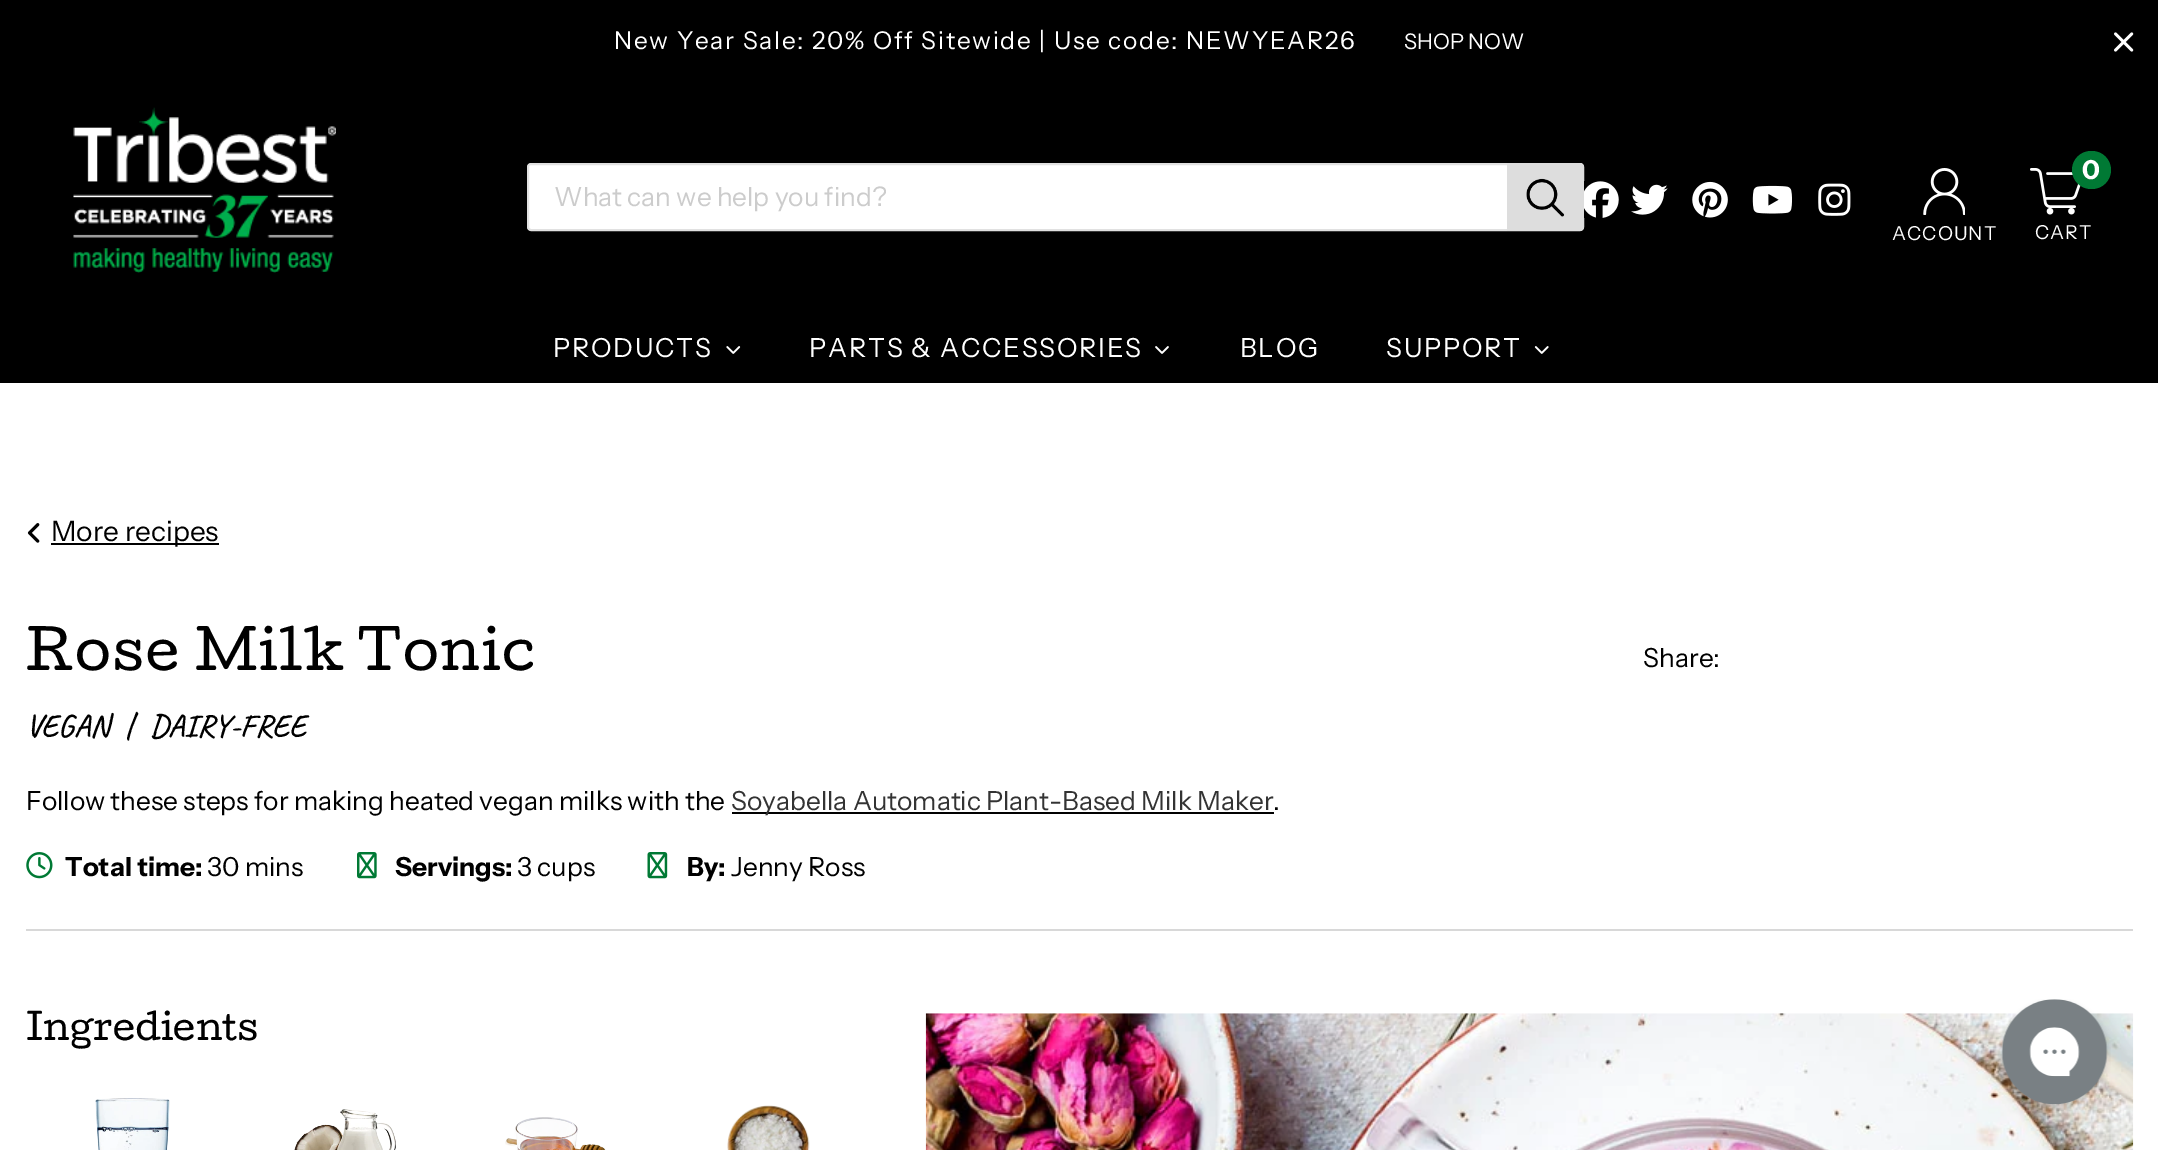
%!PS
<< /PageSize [2158 1150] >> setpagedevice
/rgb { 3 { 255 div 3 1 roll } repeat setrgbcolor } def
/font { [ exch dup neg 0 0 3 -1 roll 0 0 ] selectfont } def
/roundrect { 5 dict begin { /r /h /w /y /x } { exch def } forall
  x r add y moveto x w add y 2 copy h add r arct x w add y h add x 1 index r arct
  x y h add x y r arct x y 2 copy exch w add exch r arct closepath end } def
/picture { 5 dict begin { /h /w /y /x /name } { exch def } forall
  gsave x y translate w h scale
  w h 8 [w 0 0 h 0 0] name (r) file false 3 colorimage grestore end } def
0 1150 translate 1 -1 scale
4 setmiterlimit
255 255 255 rgb
0 0 2158 1150 rectfill
0 0 0 rgb
0 0 2158 383 rectfill
(img/1.rgb) 2114 32 20 20 picture
(img/2.rgb) 73 107 263 166 picture
255 255 255 rgb
528 164 1055 66 3 roundrect gsave fill grestore
225 225 225 rgb
2 setlinewidth
stroke
221 221 221 rgb
1507 163 moveto 1580 163 lineto 1582 163 1584 165 1584 167 curveto 1584 227 lineto 1584 229 1582 231 1580 231 curveto 1507 231 lineto closepath fill
(img/3.rgb) 1526 178 39 39 picture
(img/4.rgb) 1584 181 35 37 picture
(img/5.rgb) 1631 184 37 31 picture
(img/6.rgb) 1692 181 36 37 picture
(img/7.rgb) 1752 185 40 29 picture
(img/8.rgb) 1818 183 33 33 picture
(img/9.rgb) 2030 168 51 47 picture
0 121 52 rgb
2072 151 39 38 19 roundrect fill
(img/10.rgb) 1923 168 42 47 picture
(img/11.rgb) 726 346 15 8 picture
(img/12.rgb) 1155 346 14 8 picture
(img/13.rgb) 1534 346 15 8 picture
(img/14.rgb) 27 523 13 20 picture
0 0 0 rgb
51 543 168 2 rectfill
732 812 542 2 rectfill
(img/15.rgb) 26 852 27 27 picture
(img/16.rgb) 357 852 20 27 picture
(img/17.rgb) 647 852 21 27 picture
216 216 216 rgb
26 929 2107 2 rectfill
(img/18.rgb) 95 1098 75 52 picture
(img/19.rgb) 294 1109 102 41 picture
(img/20.rgb) 505 1117 101 33 picture
(img/21.rgb) 727 1105 83 45 picture
(img/22.rgb) 925 1013 1209 137 picture
(img/23.rgb) 1998 999 113 112 picture
/InstrumentSans-Regular 24.5 font
255 255 255 rgb
614 49 moveto 1.75 0 (New Year Sale: 20% Off Sitewide | Use code: NEWYEAR26) ashow
/InstrumentSans-Regular 21.5 font
1404 49 moveto (SHOP NOW) show
/InstrumentSans-Regular 26.25 font
204 204 204 rgb
554 206 moveto (What can we help you find?) show
/InstrumentSans-Bold 26.25 font
255 255 255 rgb
2082 179 moveto -3 0 (0) ashow
/InstrumentSans-Regular 19.25 font
2035 239 moveto 1 0 (CART) ashow
1892 240 moveto 1 0 (ACCOUNT) ashow
/InstrumentSans-Regular 26.25 font
553 357 moveto 1.75 0 (PRODUCTS) ashow
809 357 moveto 1.75 0 (PARTS & ACCESSORIES) ashow
1240 357 moveto 1.75 0 (BLOG) ashow
1386 357 moveto 1.75 0 (SUPPORT) ashow
/InstrumentSans-Regular 28 font
0 0 0 rgb
51 541 moveto (More recipes) show
/Cutive-Regular 52.5 font
26 670 moveto 1.75 0 (Rose Milk Tonic) ashow
/Caveat-SemiBold 31.5 font
26 736 moveto (VEGAN  |  DAIRY-FREE) show
/InstrumentSans-Regular 26.25 font
1643 667 moveto (Share:) show
26 810 moveto (Follow these steps for making heated vegan milks with the) show
51 51 51 rgb
731 810 moveto (Soyabella Automatic Plant-Based Milk Maker) show
0 0 0 rgb
1273 810 moveto (.) show
/InstrumentSans-Bold 26.25 font
65 876 moveto (Total time:) show
/InstrumentSans-Regular 26.25 font
207 876 moveto (30 mins) show
/InstrumentSans-Bold 26.25 font
395 876 moveto (Servings:) show
/InstrumentSans-Regular 26.25 font
517 876 moveto (3 cups) show
/InstrumentSans-Bold 26.25 font
687 876 moveto (By:) show
/InstrumentSans-Regular 26.25 font
731 876 moveto (Jenny Ross) show
/Cutive-Regular 35 font
26 1040 moveto (Ingredients) show
showpage
